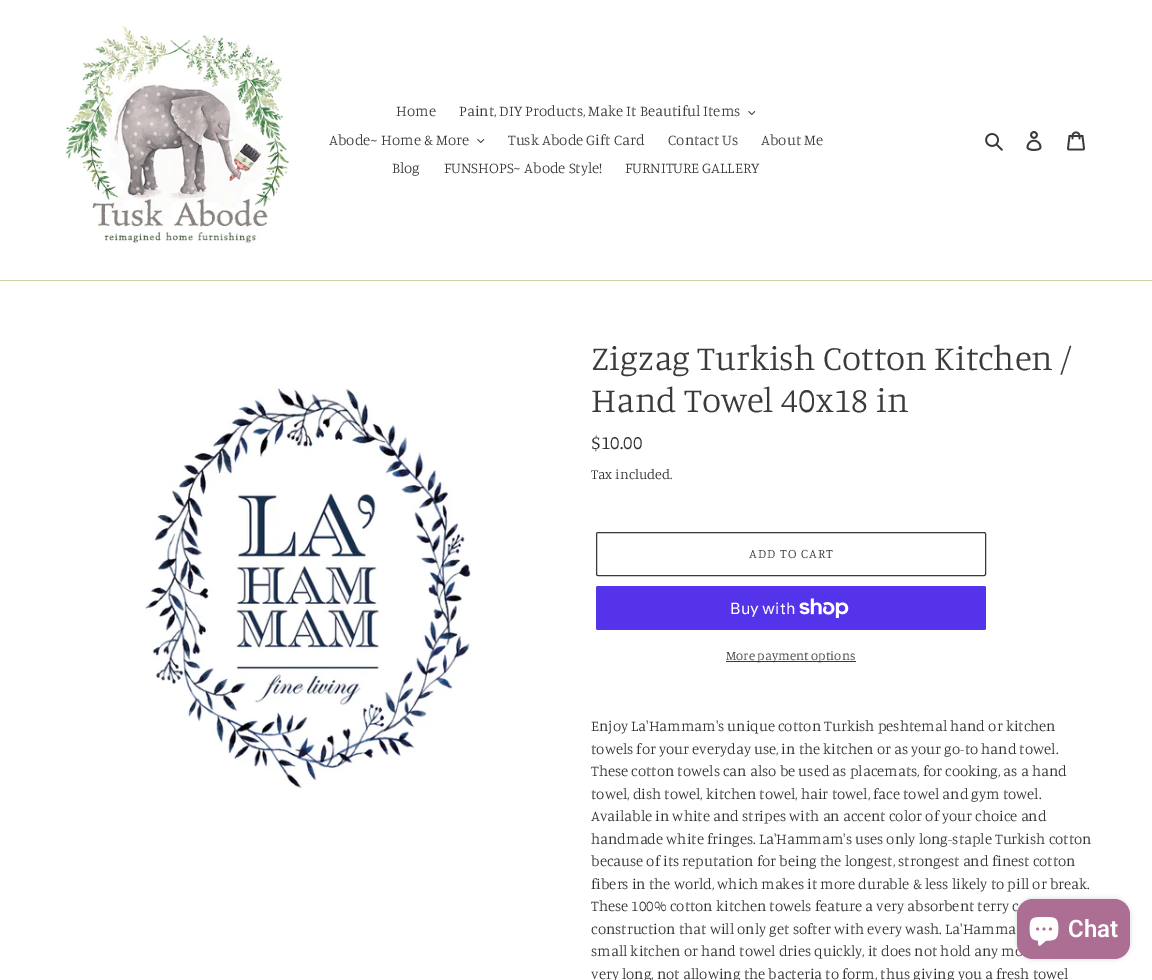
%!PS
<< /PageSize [1152 980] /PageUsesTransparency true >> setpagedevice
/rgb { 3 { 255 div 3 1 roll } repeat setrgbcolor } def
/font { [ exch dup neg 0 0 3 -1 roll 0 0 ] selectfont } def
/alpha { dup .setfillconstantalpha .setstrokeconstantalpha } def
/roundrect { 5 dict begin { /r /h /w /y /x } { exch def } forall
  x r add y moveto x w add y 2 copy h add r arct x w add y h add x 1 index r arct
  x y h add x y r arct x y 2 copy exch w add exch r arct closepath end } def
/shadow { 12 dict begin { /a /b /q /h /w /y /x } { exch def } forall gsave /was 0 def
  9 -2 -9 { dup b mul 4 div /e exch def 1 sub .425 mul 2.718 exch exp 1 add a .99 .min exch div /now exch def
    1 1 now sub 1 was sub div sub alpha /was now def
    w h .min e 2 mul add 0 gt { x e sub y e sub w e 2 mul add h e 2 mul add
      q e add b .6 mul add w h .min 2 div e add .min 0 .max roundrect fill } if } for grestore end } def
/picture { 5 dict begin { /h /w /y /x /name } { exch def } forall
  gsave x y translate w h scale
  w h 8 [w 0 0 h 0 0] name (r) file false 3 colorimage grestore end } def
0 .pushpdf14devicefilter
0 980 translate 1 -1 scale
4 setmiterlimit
255 255 255 rgb
0 0 1152 980 rectfill
202 212 167 rgb
0 280 1152 1 rectfill
(img/1.rgb) 65 26 225 220 picture
(img/2.rgb) 748 111 8 4 picture
(img/2.rgb) 477 139 8 4 picture
(img/3.rgb) 985 133 18 18 picture
(img/4.rgb) 1026 131 16 20 picture
(img/5.rgb) 1067 131 18 20 picture
(img/6.rgb) 145 388 326 401 picture
58 58 58 rgb
596.5 532.5 389 43 1.5 roundrect stroke
84 51 235 rgb
596 586 390 44 2 roundrect fill
(img/7.rgb) 799 598 50 20 picture
58 58 58 rgb
726 661 130 1 rectfill
0 0 0 rgb
1017 899 113 60 16 2.5 0.15 shadow
/Manuale-Light 15 font
58 58 58 rgb
[
  [(Home) 396 116]
  [(Paint, DIY Products, Make It Beautiful Items) 459 116]
  [(Abode~ Home & More) 329 145]
  [(Tusk Abode Gift Card) 508 145]
  [(Contact Us) 668 145]
  [(About Me) 761 145]
  [(Blog) 392 173]
  [(FUNSHOPS~ Abode Style!) 444 173]
  [(FURNITURE GALLERY) 625 173]
] { aload pop moveto show } forall
/Manuale-Light 35 font
591 370 moveto (Zigzag Turkish Cotton Kitchen /) show
591 412 moveto (Hand Towel 40x18 in) show
/Manuale-Regular 19 font
51 50 50 rgb
591 449 moveto ($10.00) show
/Manuale-Light 14 font
591 479 moveto (Tax included.) show
/Manuale-Light 13 font
58 58 58 rgb
749 558 moveto 1 0 (ADD TO CART) ashow
/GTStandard-Regular 16 font
255 255 255 rgb
730 614 moveto (Buy with) show
/Manuale-Light 13 font
58 58 58 rgb
726 660 moveto (More payment options) show
/Manuale-Light 15 font
51 50 50 rgb
[
  [(Enjoy La'Hammam's unique cotton Turkish peshtemal hand or kitchen) 591 731]
  [(towels for your everyday use, in the kitchen or as your go-to hand towel.) 591 754]
  [(These cotton towels can also be used as placemats, for cooking, as a hand) 591 776]
  [(towel, dish towel, kitchen towel, hair towel, face towel and gym towel.) 591 799]
  [(Available in white and stripes with an accent color of your choice and) 591 821]
  [(handmade white fringes. La'Hammam's uses only long-staple Turkish cotton) 591 844]
  [(because of its reputation for being the longest, strongest and finest cotton) 591 866]
  [(fibers in the world, which makes it more durable & less likely to pill or break.) 591 889]
  [(These 100% cotton kitchen towels feature a very absorbent terry c) 591 911]
  [(construction that will only get softer with every wash. La'Hamma) 591 934]
  [(small kitchen or hand towel dries quickly, it does not hold any mo) 591 956]
  [(very long, not allowing the bacteria to form, thus giving you a fresh towel) 591 979]
] { aload pop moveto show } forall
172 111 147 rgb
1017 899 113 60 16 roundrect fill
(img/8.rgb) 1029 917 30 29 picture
/Roboto-SemiBold 24 font
255 255 255 rgb
1068 937 moveto (Chat) show
.poppdf14devicefilter showpage
